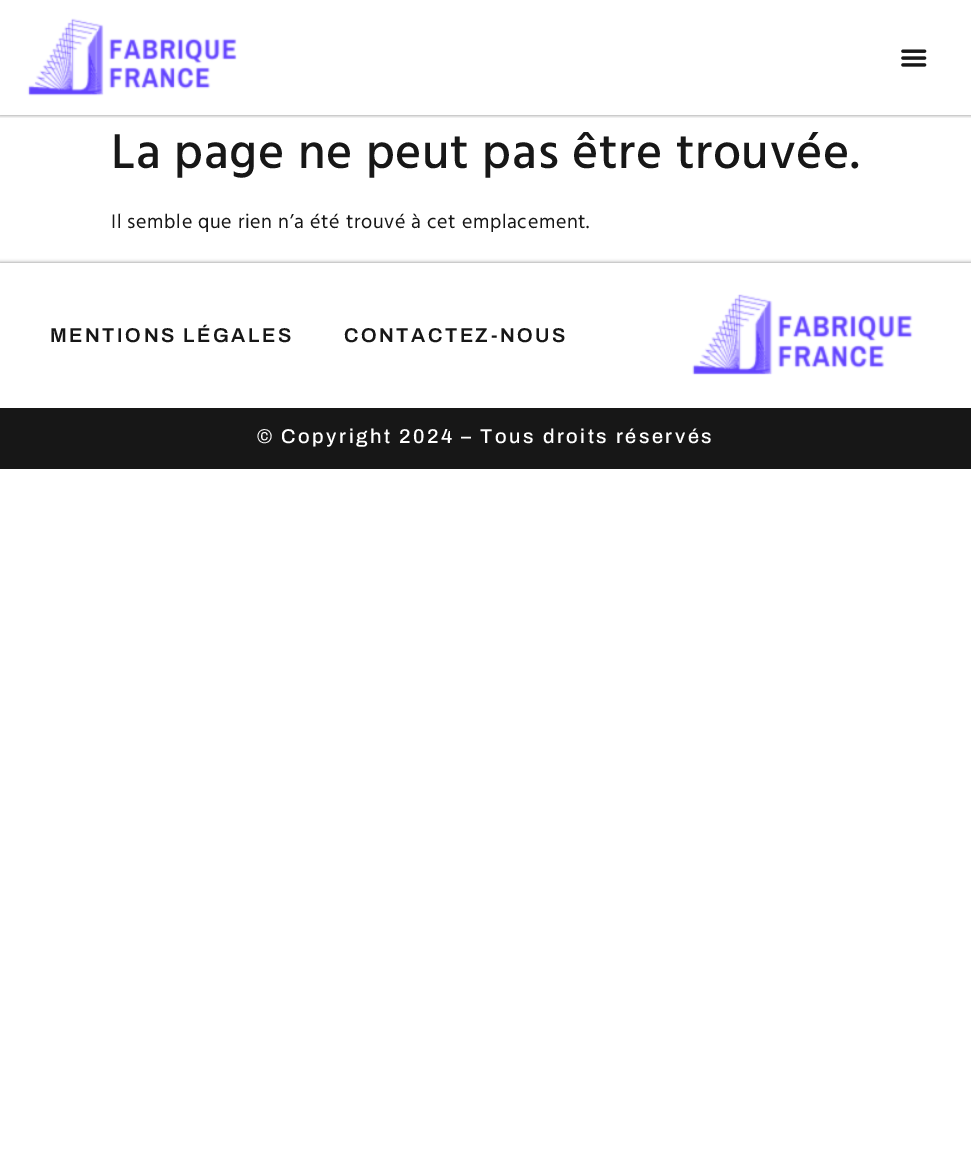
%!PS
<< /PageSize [971 1162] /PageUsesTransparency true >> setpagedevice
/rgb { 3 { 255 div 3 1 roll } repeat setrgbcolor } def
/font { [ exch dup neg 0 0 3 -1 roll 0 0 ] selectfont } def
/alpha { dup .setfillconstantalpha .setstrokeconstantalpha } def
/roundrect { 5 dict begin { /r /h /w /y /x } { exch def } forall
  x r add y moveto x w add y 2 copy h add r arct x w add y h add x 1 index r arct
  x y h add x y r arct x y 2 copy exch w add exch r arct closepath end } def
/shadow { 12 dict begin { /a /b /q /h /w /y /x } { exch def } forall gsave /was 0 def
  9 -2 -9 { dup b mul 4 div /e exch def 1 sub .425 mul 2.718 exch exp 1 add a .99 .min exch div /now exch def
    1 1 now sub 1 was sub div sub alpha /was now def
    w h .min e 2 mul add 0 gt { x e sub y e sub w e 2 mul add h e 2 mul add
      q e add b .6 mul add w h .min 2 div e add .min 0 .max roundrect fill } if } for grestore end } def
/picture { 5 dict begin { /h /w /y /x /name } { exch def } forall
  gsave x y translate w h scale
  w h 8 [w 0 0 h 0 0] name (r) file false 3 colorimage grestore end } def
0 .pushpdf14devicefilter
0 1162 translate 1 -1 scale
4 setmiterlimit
255 255 255 rgb
0 0 971 1162 rectfill
gsave
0 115 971 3 rectclip
0 0 0 rgb
0 0 971 115 0 2 0.5 shadow
grestore
(img/1.rgb) 27 18 210 78 picture
(img/2.rgb) 901 49 26 18 picture
gsave
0 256 moveto 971 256 lineto 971 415 lineto 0 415 lineto closepath 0 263 moveto 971 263 lineto 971 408 lineto 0 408 lineto closepath eoclip newpath
0 0 0 rgb
0 263 971 145 0 2 0.5 shadow
grestore
(img/3.rgb) 692 294 221 81 picture
23 23 23 rgb
0 408 971 61 rectfill
/Hind-Medium 50 font
111 168 moveto 0.62 0 (La page ne peut pas être trouvée.) ashow
/Hind-Regular 20 font
111 228 moveto 0.62 0 (Il semble que rien n’a été trouvé à cet emplacement.) ashow
/Archivo-SemiBold 20 font
50 342 moveto 2.5 0 (MENTIONS LÉGALES) ashow
344 342 moveto 2.5 0 (CONTACTEZ-NOUS) ashow
/Archivo-Medium 20 font
255 255 255 rgb
257 443 moveto 2.5 0 (© Copyright 2024 – Tous droits réservés) ashow
.poppdf14devicefilter showpage
